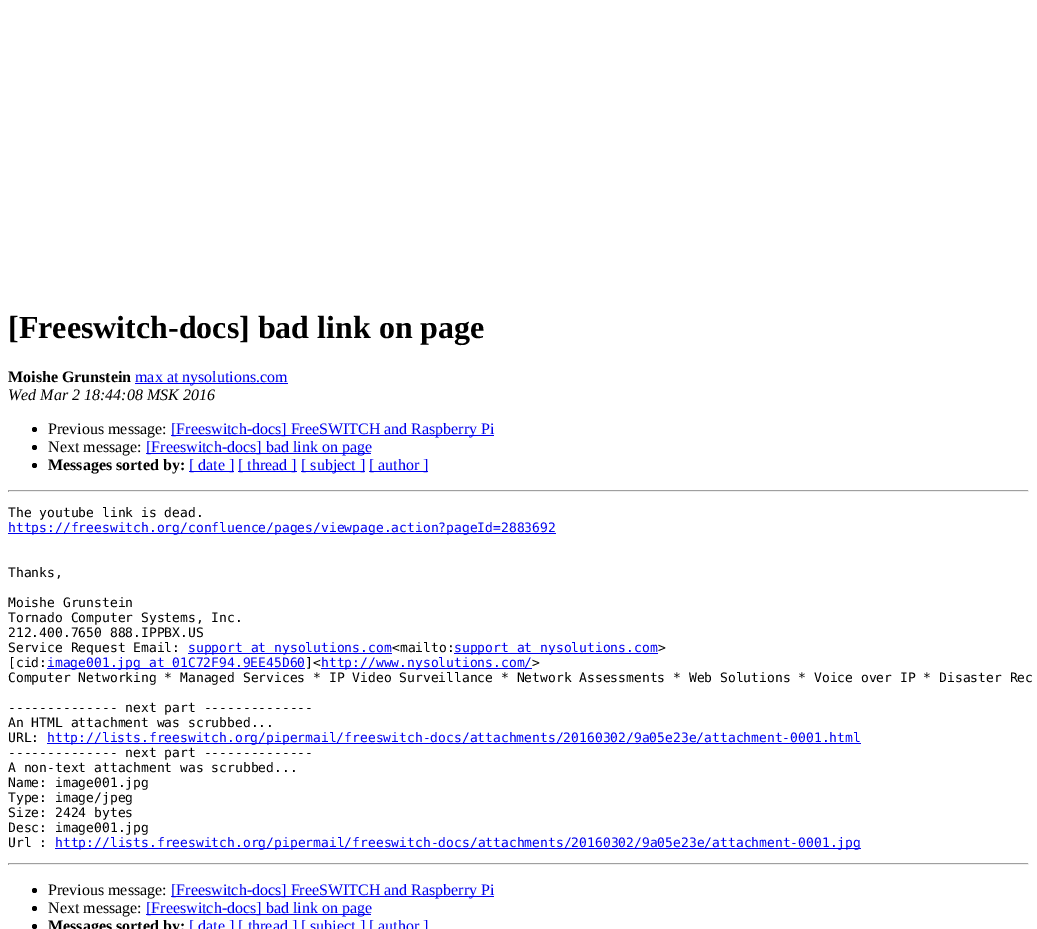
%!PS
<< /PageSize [1037 929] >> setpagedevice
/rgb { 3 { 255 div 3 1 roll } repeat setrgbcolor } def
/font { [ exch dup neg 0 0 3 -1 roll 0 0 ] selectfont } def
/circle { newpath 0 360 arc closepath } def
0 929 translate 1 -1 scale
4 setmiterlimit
255 255 255 rgb
0 0 1037 929 rectfill
0 0 238 rgb
135 383 153 1 rectfill
0 0 0 rgb
34.5 429.5 2.5 circle fill
0 0 238 rgb
171 435 323 1 rectfill
0 0 0 rgb
34.5 447.5 2.5 circle fill
0 0 238 rgb
146 453 225 1 rectfill
0 0 0 rgb
34.5 465.5 2.5 circle fill
[
  [189 471 45 1 0 0 238]
  [238 471 59 1 0 0 238]
  [301 471 64 1 0 0 238]
  [369 471 59 1 0 0 238]
  [8 490 1021 1 159 159 159]
  [1028 490 1 2 238 238 238]
  [8 491 1021 1 238 238 238]
  [8 490 1 2 159 159 159]
  [8 533 548 1 0 0 238]
  [188 653 204 1 0 0 238]
  [454 653 204 1 0 0 238]
  [47 668 258 1 0 0 238]
  [321 668 211 1 0 0 238]
  [47 743 814 1 0 0 238]
  [55 848 806 1 0 0 238]
  [8 863 1021 1 159 159 159]
  [1028 863 1 2 238 238 238]
  [8 864 1021 1 238 238 238]
  [8 863 1 2 159 159 159]
] { aload pop rgb rectfill } forall
0 0 0 rgb
34.5 890.5 2.5 circle fill
0 0 238 rgb
171 896 323 1 rectfill
0 0 0 rgb
34.5 908.5 2.5 circle fill
0 0 238 rgb
146 914 225 1 rectfill
0 0 0 rgb
34.5 926.5 2.5 circle fill
/LiberationSerif-Bold 32 font
8 338 moveto ([Freeswitch-docs] bad link on page) show
/LiberationSerif-Bold 16 font
8 382 moveto (Moishe Grunstein) show
/LiberationSerif-Regular 16 font
0 0 238 rgb
135 382 moveto (max at nysolutions.com) show
/LiberationSerif-Italic 16 font
0 0 0 rgb
8 400 moveto (Wed Mar 2 18:44:08 MSK 2016) show
/LiberationSerif-Regular 16 font
48 434 moveto (Previous message:) show
0 0 238 rgb
171 434 moveto ([Freeswitch-docs] FreeSWITCH and Raspberry Pi) show
0 0 0 rgb
48 452 moveto (Next message:) show
0 0 238 rgb
146 452 moveto ([Freeswitch-docs] bad link on page) show
/LiberationSerif-Bold 16 font
0 0 0 rgb
48 470 moveto (Messages sorted by:) show
/LiberationSerif-Regular 16 font
0 0 238 rgb
[
  [([ date ]) 189 470]
  [([ thread ]) 238 470]
  [([ subject ]) 301 470]
  [([ author ]) 369 470]
] { aload pop moveto show } forall
/DejaVuSansMono-Regular 13 font
0 0 0 rgb
8 517 moveto (The youtube link is dead.) show
0 0 238 rgb
8 532 moveto (https://freeswitch.org/confluence/pages/viewpage.action?pageId=2883692) show
0 0 0 rgb
[
  [(Thanks,) 8 577]
  [(Moishe Grunstein) 8 607]
  [(Tornado Computer Systems, Inc.) 8 622]
  [(212.400.7650 888.IPPBX.US) 8 637]
  [(Service Request Email:) 8 652]
] { aload pop moveto show } forall
0 0 238 rgb
188 652 moveto (support at nysolutions.com) show
0 0 0 rgb
392 652 moveto (<mailto:) show
0 0 238 rgb
454 652 moveto (support at nysolutions.com) show
0 0 0 rgb
658 652 moveto (>) show
8 667 moveto ([cid:) show
0 0 238 rgb
47 667 moveto (image001.jpg at 01C72F94.9EE45D60) show
0 0 0 rgb
305 667 moveto (]<) show
0 0 238 rgb
321 667 moveto (http://www.nysolutions.com/) show
0 0 0 rgb
[
  [(>) 532 667]
  [(Computer Networking * Managed Services * IP Video Surveillance * Network Assessments * Web Solutions * Voice over IP * Disaster Rec) 8 682]
  [(-------------- next part --------------) 8 712]
  [(An HTML attachment was scrubbed...) 8 727]
  [(URL:) 8 742]
] { aload pop moveto show } forall
0 0 238 rgb
47 742 moveto (http://lists.freeswitch.org/pipermail/freeswitch-docs/attachments/20160302/9a05e23e/attachment-0001.html) show
0 0 0 rgb
[
  [(-------------- next part --------------) 8 757]
  [(A non-text attachment was scrubbed...) 8 772]
  [(Name: image001.jpg) 8 787]
  [(Type: image/jpeg) 8 802]
  [(Size: 2424 bytes) 8 817]
  [(Desc: image001.jpg) 8 832]
  [(Url :) 8 847]
] { aload pop moveto show } forall
0 0 238 rgb
55 847 moveto (http://lists.freeswitch.org/pipermail/freeswitch-docs/attachments/20160302/9a05e23e/attachment-0001.jpg) show
/LiberationSerif-Regular 16 font
0 0 0 rgb
48 895 moveto (Previous message:) show
0 0 238 rgb
171 895 moveto ([Freeswitch-docs] FreeSWITCH and Raspberry Pi) show
0 0 0 rgb
48 913 moveto (Next message:) show
0 0 238 rgb
146 913 moveto ([Freeswitch-docs] bad link on page) show
/LiberationSerif-Bold 16 font
0 0 0 rgb
48 931 moveto (Messages sorted by:) show
/LiberationSerif-Regular 16 font
0 0 238 rgb
189 931 moveto ([ date ] [ thread ] [ subject ] [ author ]) show
showpage
